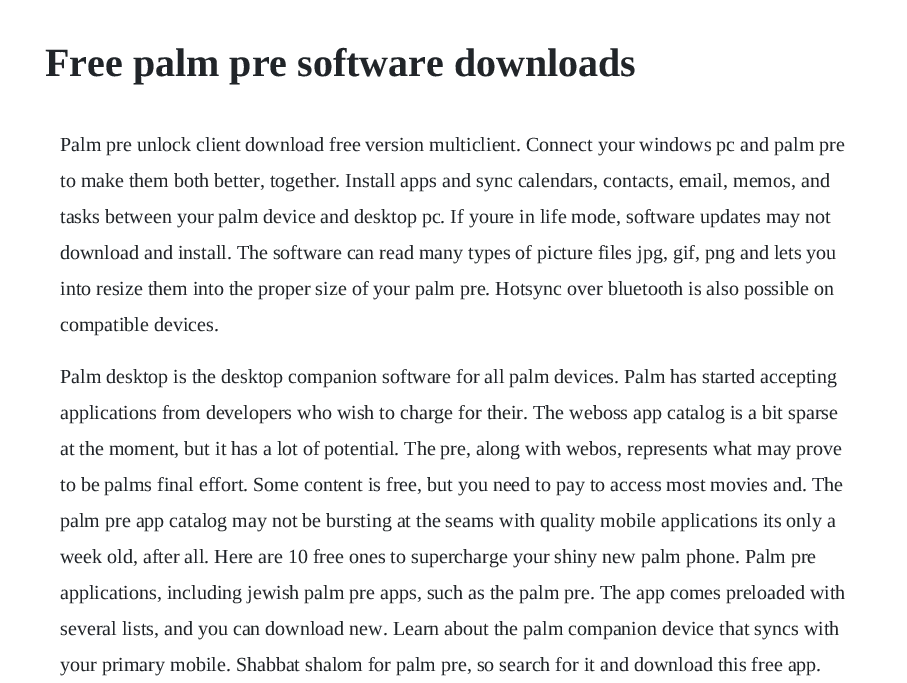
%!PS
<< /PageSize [907 683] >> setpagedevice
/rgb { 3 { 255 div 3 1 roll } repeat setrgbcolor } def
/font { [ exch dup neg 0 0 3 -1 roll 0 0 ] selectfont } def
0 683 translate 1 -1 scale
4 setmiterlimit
255 255 255 rgb
0 0 907 683 rectfill
/LiberationSerif-Bold 40 font
33 37 41 rgb
45 76 moveto (Free palm pre software downloads) show
/LiberationSerif-Regular 20 font
[
  [(Palm pre unlock client download free version multiclient. Connect your windows pc and palm pre) 60 151]
  [(to make them both better, together. Install apps and sync calendars, contacts, email, memos, and) 60 187]
  [(tasks between your palm device and desktop pc. If youre in life mode, software updates may not) 60 223]
  [(download and install. The software can read many types of picture files jpg, gif, png and lets you) 60 259]
  [(into resize them into the proper size of your palm pre. Hotsync over bluetooth is also possible on) 60 295]
  [(compatible devices.) 60 331]
  [(Palm desktop is the desktop companion software for all palm devices. Palm has started accepting) 60 383]
  [(applications from developers who wish to charge for their. The weboss app catalog is a bit sparse) 60 419]
  [(at the moment, but it has a lot of potential. The pre, along with webos, represents what may prove) 60 455]
  [(to be palms final effort. Some content is free, but you need to pay to access most movies and. The) 60 491]
  [(palm pre app catalog may not be bursting at the seams with quality mobile applications its only a) 60 527]
  [(week old, after all. Here are 10 free ones to supercharge your shiny new palm phone. Palm pre) 60 563]
  [(applications, including jewish palm pre apps, such as the palm pre. The app comes preloaded with) 60 599]
  [(several lists, and you can download new. Learn about the palm companion device that syncs with) 60 635]
  [(your primary mobile. Shabbat shalom for palm pre, so search for it and download this free app.) 60 671]
] { aload pop moveto show } forall
showpage
